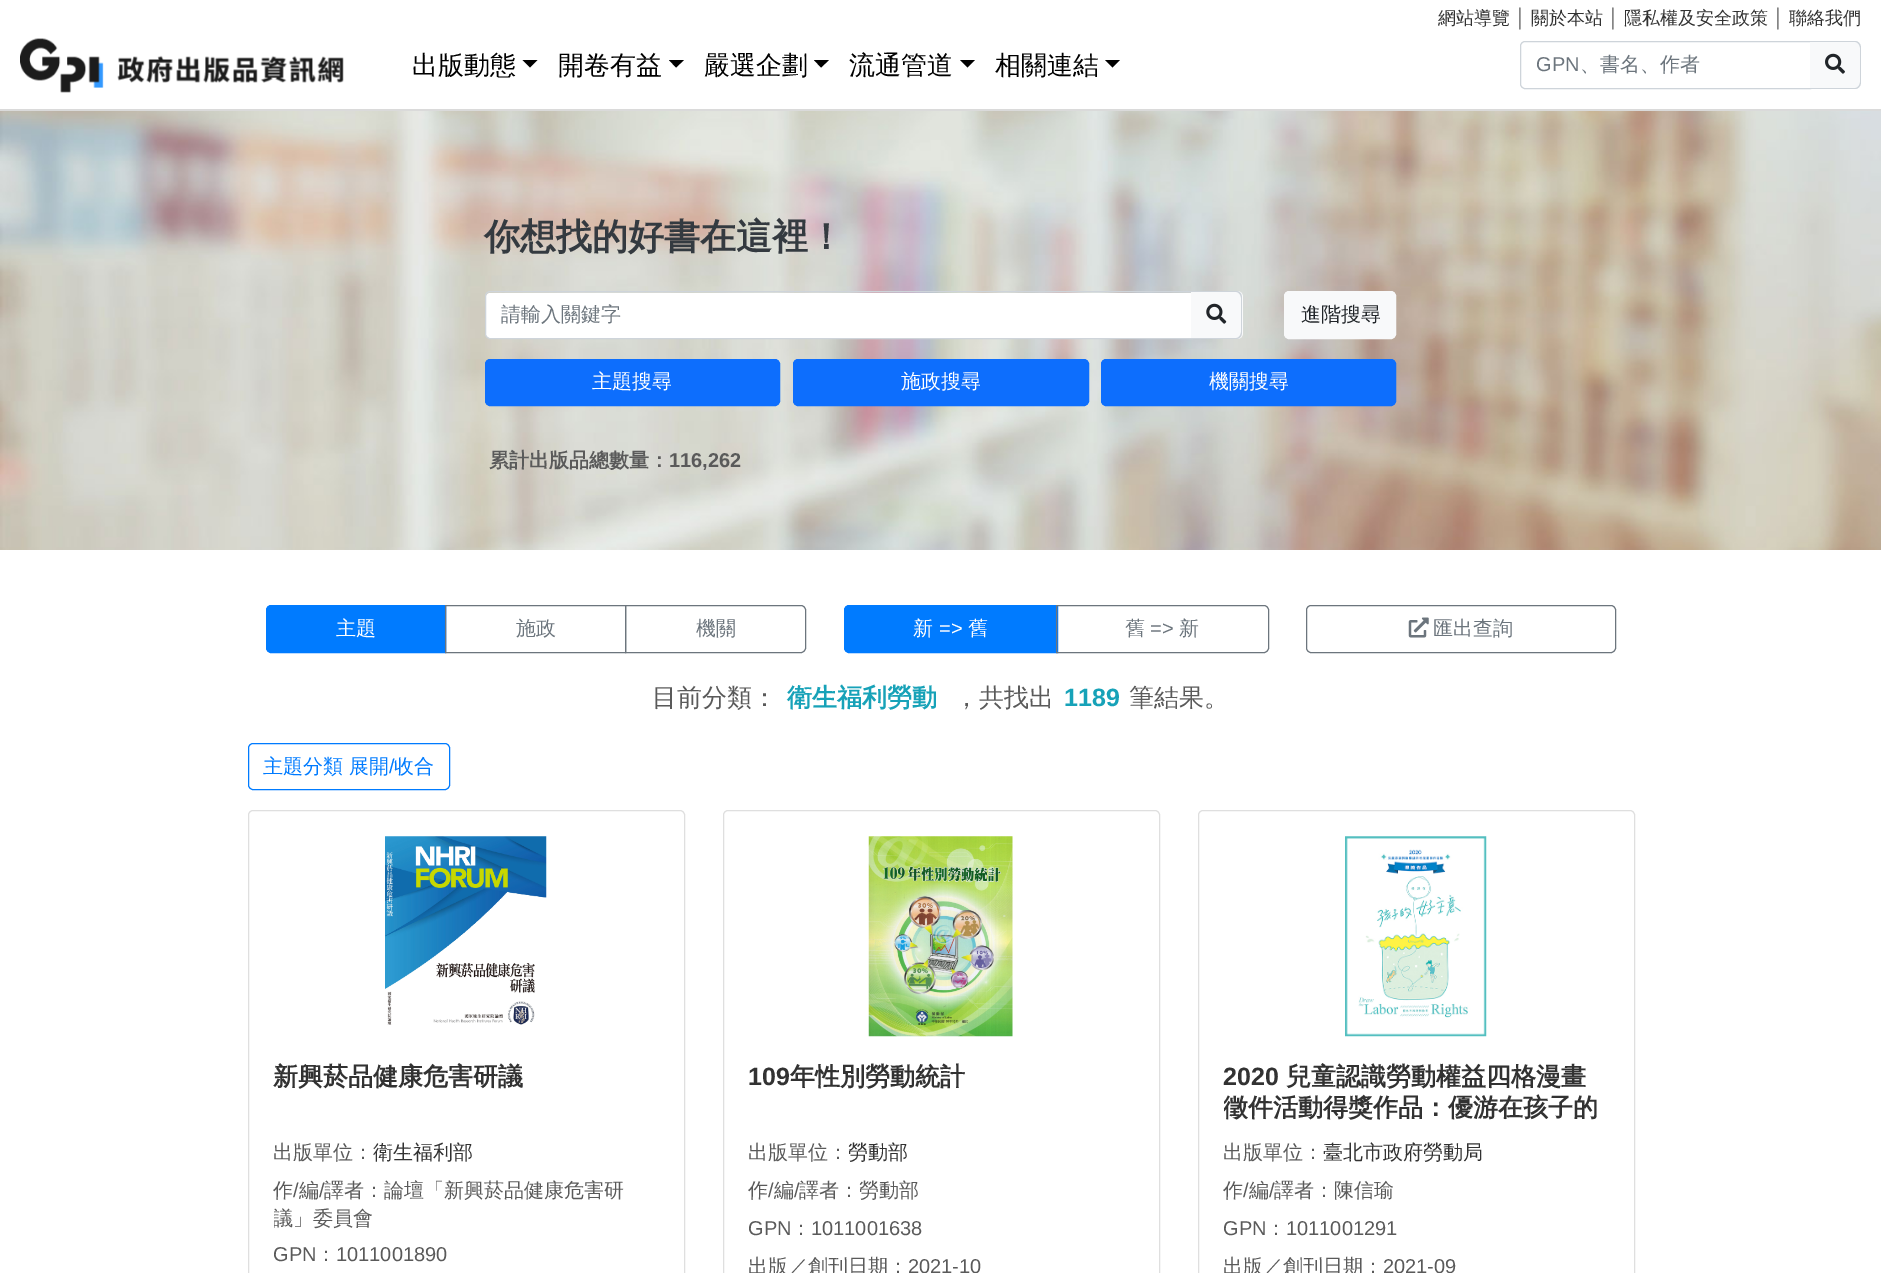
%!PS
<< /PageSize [1881 1273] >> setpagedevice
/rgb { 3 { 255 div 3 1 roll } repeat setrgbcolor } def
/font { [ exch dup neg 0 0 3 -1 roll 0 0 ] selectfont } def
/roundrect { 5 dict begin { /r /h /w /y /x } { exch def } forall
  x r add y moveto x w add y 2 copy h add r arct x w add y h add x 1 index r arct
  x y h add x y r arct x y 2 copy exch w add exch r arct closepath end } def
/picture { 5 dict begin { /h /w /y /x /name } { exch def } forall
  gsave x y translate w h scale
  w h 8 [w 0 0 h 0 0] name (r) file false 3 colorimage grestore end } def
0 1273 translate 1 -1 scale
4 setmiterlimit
255 255 255 rgb
0 0 1881 1273 rectfill
218 218 218 rgb
0 109 1881 2 rectfill
(img/1.rgb) 20 38 324 55 picture
0 0 0 rgb
522.5 60 moveto 537.5 60 lineto 530 67.5 lineto closepath fill
669 60 moveto 684 60 lineto 676 67.5 lineto closepath fill
814 60 moveto 829 60 lineto 821 67.5 lineto closepath fill
960 60 moveto 975 60 lineto 967.5 67.5 lineto closepath fill
1105 60 moveto 1120 60 lineto 1112.5 67.5 lineto closepath fill
206 212 218 rgb
1525 41.5 moveto 1810.5 41.5 lineto 1810.5 88.5 lineto 1525 88.5 lineto 1522.5 88.5 1520.5 86.5 1520.5 84 curveto 1520.5 46 lineto 1520.5 43.5 1522.5 41.5 1525 41.5 curveto closepath stroke
248 249 250 rgb
1810 41 moveto 1855 41 lineto 1858.5 41 1861 43.5 1861 47 curveto 1861 83 lineto 1861 86.5 1858.5 89 1855 89 curveto 1810 89 lineto closepath fill
206 212 218 rgb
1810 41 moveto 1855 41 lineto 1858 41 1861 44 1861 48 curveto 1861 82 lineto 1861 86 1858 89 1855 89 curveto 1810 89 lineto closepath 1810 42 moveto 1855 42 lineto 1858 42 1860 45 1860 48 curveto 1860 82 lineto 1860 85 1858 88 1855 88 curveto 1810 88 lineto closepath eofill
(img/2.rgb) 1825 53 20 21 picture
(img/3.rgb) 0 111 1881 439 picture
255 255 255 rgb
490 293 moveto 1191 293 lineto 1191 338 lineto 490 338 lineto 488 338 486 336 486 334 curveto 486 297 lineto 486 295 488 293 490 293 curveto closepath fill
206 212 218 rgb
490 291.5 moveto 1192.5 291.5 lineto 1192.5 338.5 lineto 490 338.5 lineto 487.5 338.5 485.5 336.5 485.5 334 curveto 485.5 296 lineto 485.5 293.5 487.5 291.5 490 291.5 curveto closepath stroke
248 249 250 rgb
1191 291 moveto 1237 291 lineto 1240.5 291 1243 293.5 1243 297 curveto 1243 333 lineto 1243 336.5 1240.5 339 1237 339 curveto 1191 339 lineto closepath fill
206 212 218 rgb
1191 291 moveto 1236 291 lineto 1240 291 1242 294 1242 298 curveto 1242 332 lineto 1242 336 1240 339 1236 339 curveto 1191 339 lineto closepath 1191 292 moveto 1236 292 lineto 1239 292 1241 295 1241 298 curveto 1241 332 lineto 1241 335 1239 338 1236 338 curveto 1191 338 lineto closepath eofill
(img/4.rgb) 1206 303 21 21 picture
248 249 250 rgb
1284.5 291.5 111 47 4.5 roundrect gsave fill grestore
stroke
13 110 253 rgb
485.5 359.5 294 46 4.5 roundrect gsave fill grestore
stroke
793.5 359.5 295 46 4.5 roundrect gsave fill grestore
stroke
1101.5 359.5 294 46 4.5 roundrect gsave fill grestore
stroke
0 123 255 rgb
271 605.5 moveto 445.5 605.5 lineto 445.5 652.5 lineto 271 652.5 lineto 268.5 652.5 266.5 650.5 266.5 648 curveto 266.5 610 lineto 266.5 607.5 268.5 605.5 271 605.5 curveto closepath gsave fill grestore
stroke
108 117 125 rgb
445.5 605.5 180 47 rectstroke
625.5 605.5 moveto 801 605.5 lineto 803.5 605.5 805.5 607.5 805.5 610 curveto 805.5 648 lineto 805.5 650.5 803.5 652.5 801 652.5 curveto 625.5 652.5 lineto closepath stroke
0 123 255 rgb
849 605.5 moveto 1057.5 605.5 lineto 1057.5 652.5 lineto 849 652.5 lineto 846.5 652.5 844.5 650.5 844.5 648 curveto 844.5 610 lineto 844.5 607.5 846.5 605.5 849 605.5 curveto closepath gsave fill grestore
stroke
108 117 125 rgb
1056.5 605.5 moveto 1264 605.5 lineto 1266.5 605.5 1268.5 607.5 1268.5 610 curveto 1268.5 648 lineto 1268.5 650.5 1266.5 652.5 1264 652.5 curveto 1056.5 652.5 lineto closepath stroke
1306.5 605.5 309 47 4.5 roundrect stroke
(img/5.rgb) 1408 617 21 21 picture
0 123 255 rgb
248.5 743.5 201 46 4.5 roundrect stroke
223 223 223 rgb
248.5 810.5 436 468 4.5 roundrect stroke
(img/6.rgb) 385 836 162 189 picture
723.5 810.5 436 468 4.5 roundrect stroke
(img/7.rgb) 868 836 145 201 picture
1198.5 810.5 436 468 4.5 roundrect stroke
(img/8.rgb) 1345 836 142 201 picture
/WenQuanYiZenHei-Medium 18 font
50 50 50 rgb
1438 24 moveto (網站導覽) show
/LiberationSans-Regular 18 font
90 90 90 rgb
1515 24 moveto (│) show
/WenQuanYiZenHei-Medium 18 font
50 50 50 rgb
1531 24 moveto (關於本站) show
/LiberationSans-Regular 18 font
90 90 90 rgb
1608 24 moveto (│) show
/WenQuanYiZenHei-Medium 18 font
50 50 50 rgb
1624 24 moveto (隱私權及安全政策) show
/LiberationSans-Regular 18 font
90 90 90 rgb
1773 24 moveto (│) show
/WenQuanYiZenHei-Medium 18 font
50 50 50 rgb
1789 24 moveto (聯絡我們) show
/WenQuanYiZenHei-Medium 26 font
0 0 0 rgb
[
  [(出版動態) 412 74]
  [(開卷有益) 558 74]
  [(嚴選企劃) 704 74]
  [(流通管道) 849 74]
  [(相關連結) 995 74]
] { aload pop moveto show } forall
/LiberationSans-Regular 20 font
108 117 125 rgb
1536 71 moveto (GPN) show
/WenQuanYiZenHei-Medium 20 font
1580 71 moveto (、書名、作者) show
/WenQuanYiZenHei-Bold 36 font
52 58 64 rgb
484 249 moveto (你想找的好書在這裡！) show
/WenQuanYiZenHei-Medium 20 font
108 117 125 rgb
501 321 moveto (請輸入關鍵字) show
33 37 41 rgb
1301 321 moveto (進階搜尋) show
255 255 255 rgb
[
  [(主題搜尋) 592 388]
  [(施政搜尋) 901 388]
  [(機關搜尋) 1209 388]
] { aload pop moveto show } forall
/WenQuanYiZenHei-Bold 20 font
90 90 90 rgb
489 467 moveto (累計出版品總數量：) show
/LiberationSans-Bold 20 font
669 467 moveto (116,262) show
/WenQuanYiZenHei-Medium 20 font
255 255 255 rgb
336 635 moveto (主題) show
108 117 125 rgb
516 635 moveto (施政) show
696 635 moveto (機關) show
255 255 255 rgb
913 635 moveto (新) show
/LiberationSans-Regular 20 font
939 635 moveto (=>) show
/WenQuanYiZenHei-Medium 20 font
968 635 moveto (舊) show
108 117 125 rgb
1125 635 moveto (舊) show
/LiberationSans-Regular 20 font
1150 635 moveto (=>) show
/WenQuanYiZenHei-Medium 20 font
1179 635 moveto (新) show
1433 635 moveto (匯出查詢) show
/WenQuanYiZenHei-Medium 25 font
90 90 90 rgb
652 706 moveto (目前分類：) show
/WenQuanYiZenHei-Bold 25 font
23 162 184 rgb
787 706 moveto (衛生福利勞動) show
/WenQuanYiZenHei-Medium 25 font
90 90 90 rgb
954 706 moveto (，共找出) show
/LiberationSans-Bold 25 font
23 162 184 rgb
1064 706 moveto (1189) show
/WenQuanYiZenHei-Medium 25 font
90 90 90 rgb
1129 706 moveto (筆結果。) show
/WenQuanYiZenHei-Medium 20 font
0 123 255 rgb
263 773 moveto (主題分類 展開) show
/LiberationSans-Regular 20 font
389 773 moveto (/) show
/WenQuanYiZenHei-Medium 20 font
394 773 moveto (收合) show
/WenQuanYiZenHei-Bold 25 font
50 50 50 rgb
273 1085 moveto (新興菸品健康危害研議) show
/WenQuanYiZenHei-Medium 20 font
90 90 90 rgb
273 1159 moveto (出版單位：) show
50 50 50 rgb
373 1159 moveto (衛生福利部) show
90 90 90 rgb
273 1197 moveto (作) show
/LiberationSans-Regular 20 font
293 1197 moveto (/) show
/WenQuanYiZenHei-Medium 20 font
299 1197 moveto (編) show
/LiberationSans-Regular 20 font
319 1197 moveto (/) show
/WenQuanYiZenHei-Medium 20 font
324 1197 moveto (譯者：論壇「新興菸品健康危害研) show
gsave
274 1176 385 55 rectclip
273 1225 moveto (議」委員會) show
grestore
/LiberationSans-Regular 20 font
273 1261 moveto (GPN) show
/WenQuanYiZenHei-Medium 20 font
316 1261 moveto (：) show
/LiberationSans-Regular 20 font
336 1261 moveto (1011001890) show
/LiberationSans-Bold 25 font
50 50 50 rgb
748 1085 moveto (109) show
/WenQuanYiZenHei-Bold 25 font
790 1085 moveto (年性別勞動統計) show
/WenQuanYiZenHei-Medium 20 font
90 90 90 rgb
748 1159 moveto (出版單位：) show
50 50 50 rgb
848 1159 moveto (勞動部) show
90 90 90 rgb
748 1197 moveto (作) show
/LiberationSans-Regular 20 font
768 1197 moveto (/) show
/WenQuanYiZenHei-Medium 20 font
774 1197 moveto (編) show
/LiberationSans-Regular 20 font
794 1197 moveto (/) show
/WenQuanYiZenHei-Medium 20 font
799 1197 moveto (譯者：勞動部) show
/LiberationSans-Regular 20 font
748 1235 moveto (GPN) show
/WenQuanYiZenHei-Medium 20 font
791 1235 moveto (：) show
/LiberationSans-Regular 20 font
811 1235 moveto (1011001638) show
/WenQuanYiZenHei-Medium 20 font
748 1273 moveto (出版／創刊日期：) show
/LiberationSans-Regular 20 font
908 1273 moveto (2021-10) show
/LiberationSans-Bold 25 font
50 50 50 rgb
1223 1085 moveto (2020) show
/WenQuanYiZenHei-Bold 25 font
1286 1085 moveto (兒童認識勞動權益四格漫畫) show
gsave
1224 1061 385 63 rectclip
1223 1116 moveto (徵件活動得獎作品：優游在孩子的) show
grestore
/WenQuanYiZenHei-Medium 20 font
90 90 90 rgb
1223 1159 moveto (出版單位：) show
50 50 50 rgb
1323 1159 moveto (臺北市政府勞動局) show
90 90 90 rgb
1223 1197 moveto (作) show
/LiberationSans-Regular 20 font
1243 1197 moveto (/) show
/WenQuanYiZenHei-Medium 20 font
1249 1197 moveto (編) show
/LiberationSans-Regular 20 font
1269 1197 moveto (/) show
/WenQuanYiZenHei-Medium 20 font
1274 1197 moveto (譯者：陳信瑜) show
/LiberationSans-Regular 20 font
1223 1235 moveto (GPN) show
/WenQuanYiZenHei-Medium 20 font
1266 1235 moveto (：) show
/LiberationSans-Regular 20 font
1286 1235 moveto (1011001291) show
/WenQuanYiZenHei-Medium 20 font
1223 1273 moveto (出版／創刊日期：) show
/LiberationSans-Regular 20 font
1383 1273 moveto (2021-09) show
showpage
